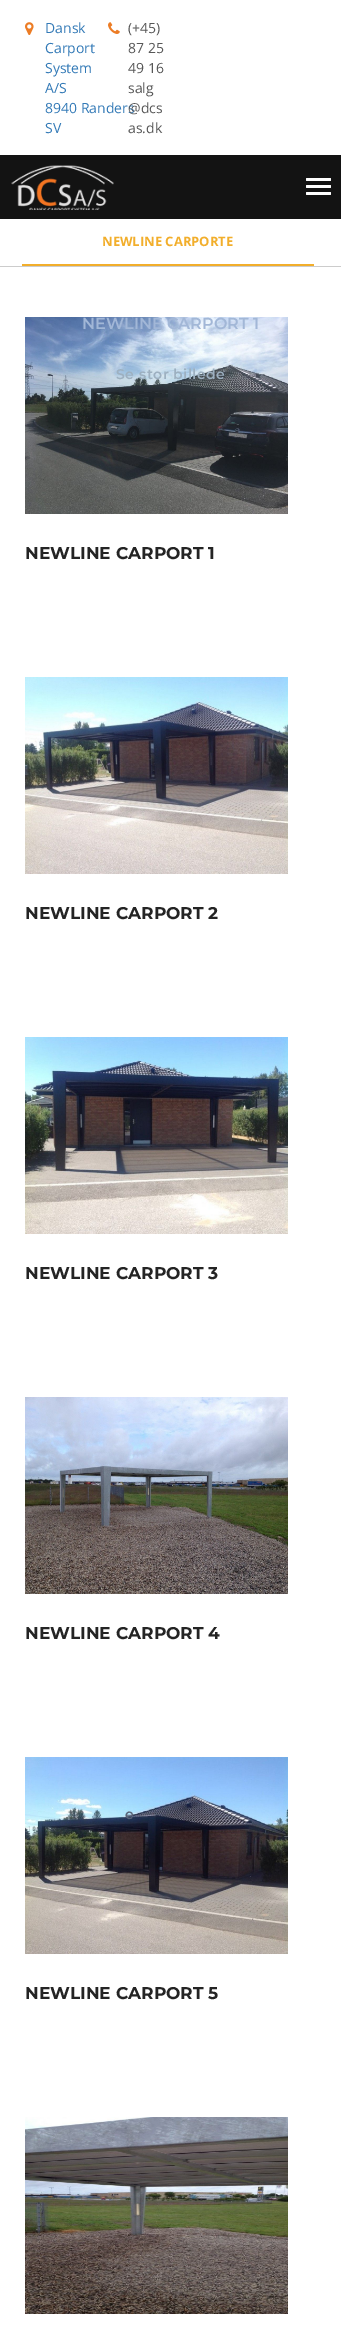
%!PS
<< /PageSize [341 2342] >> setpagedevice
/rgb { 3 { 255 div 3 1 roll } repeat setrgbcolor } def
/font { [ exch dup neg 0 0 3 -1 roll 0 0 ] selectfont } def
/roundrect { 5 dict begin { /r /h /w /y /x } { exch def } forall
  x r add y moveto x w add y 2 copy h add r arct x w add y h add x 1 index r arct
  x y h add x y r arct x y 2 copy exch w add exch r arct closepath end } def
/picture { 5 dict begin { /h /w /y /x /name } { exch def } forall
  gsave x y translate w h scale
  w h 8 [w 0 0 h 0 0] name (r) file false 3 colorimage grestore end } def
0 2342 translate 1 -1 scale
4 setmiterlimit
255 255 255 rgb
0 0 341 2342 rectfill
(img/1.rgb) 25 22 9 13 picture
(img/2.rgb) 108 22 12 12 picture
19 19 19 rgb
0 155 341 64 rectfill
(img/3.rgb) 11 165 103 45 picture
255 255 255 rgb
306 178 25 3 1 roundrect fill
306 185 25 3 1 roundrect fill
306 192 25 3 1 roundrect fill
204 204 204 rgb
0 266 341 1 rectfill
242 174 43 rgb
22 264 292 2 rectfill
(img/4.rgb) 25 317 263 197 picture
(img/5.rgb) 25 677 263 197 picture
(img/6.rgb) 25 1037 263 197 picture
(img/7.rgb) 25 1397 263 197 picture
(img/8.rgb) 25 1757 263 197 picture
(img/9.rgb) 25 2117 263 197 picture
/OpenSans-Regular 14 font
51 122 183 rgb
[
  [(Dansk) 45 33]
  [(Carport) 45 53]
  [(System) 45 73]
  [(A/S) 45 93]
  [(8940 Randers) 45 113]
  [(SV) 45 133]
] { aload pop moveto show } forall
87 87 87 rgb
[
  [(\(+45\)) 128 33]
  [(87 25) 128 53]
  [(49 16) 128 73]
  [(salg) 128 93]
  [(@dcs) 128 113]
  [(as.dk) 128 133]
] { aload pop moveto show } forall
/OpenSans-Bold 13 font
242 174 43 rgb
102 246 moveto (NEWLINE CARPORTE) show
/Montserrat-SemiBold 16 font
162 183 215 rgb
82 329 moveto (NEWLINE CARPORT 1) show
/Montserrat-SemiBold 14 font
157 176 192 rgb
116 379 moveto 0.5 0 (Se stor billede) ashow
/Montserrat-Bold 17 font
36 36 36 rgb
[
  [(NEWLINE CARPORT 1) 25 559]
  [(NEWLINE CARPORT 2) 25 919]
  [(NEWLINE CARPORT 3) 25 1279]
  [(NEWLINE CARPORT 4) 25 1639]
] { aload pop moveto show } forall
/Montserrat-SemiBold 14 font
88 98 119 rgb
125 1819 moveto 0.5 0 (e) ashow
/Montserrat-Bold 17 font
36 36 36 rgb
25 1999 moveto (NEWLINE CARPORT 5) show
showpage
